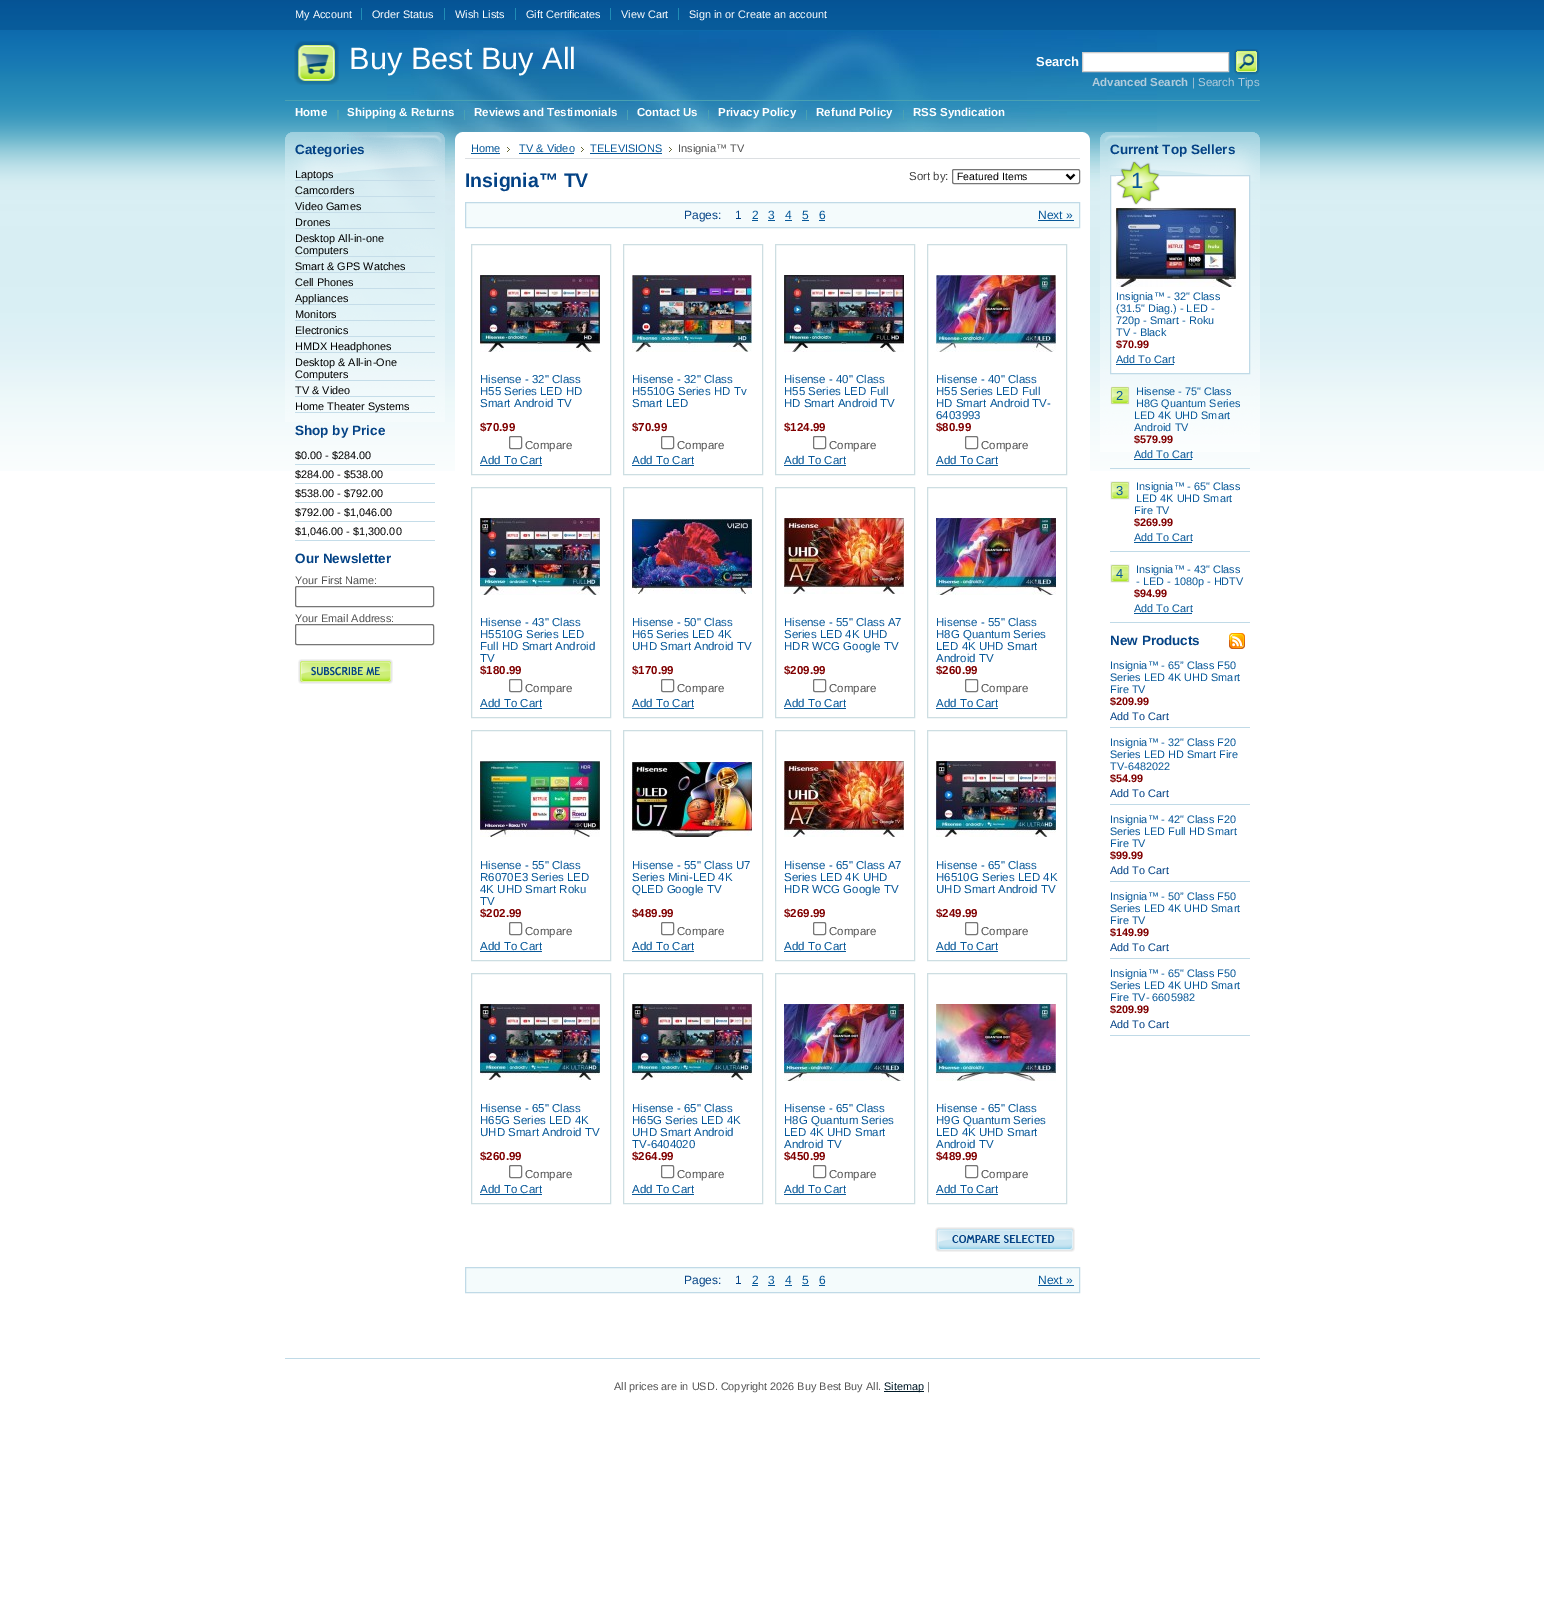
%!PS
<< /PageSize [1544 1605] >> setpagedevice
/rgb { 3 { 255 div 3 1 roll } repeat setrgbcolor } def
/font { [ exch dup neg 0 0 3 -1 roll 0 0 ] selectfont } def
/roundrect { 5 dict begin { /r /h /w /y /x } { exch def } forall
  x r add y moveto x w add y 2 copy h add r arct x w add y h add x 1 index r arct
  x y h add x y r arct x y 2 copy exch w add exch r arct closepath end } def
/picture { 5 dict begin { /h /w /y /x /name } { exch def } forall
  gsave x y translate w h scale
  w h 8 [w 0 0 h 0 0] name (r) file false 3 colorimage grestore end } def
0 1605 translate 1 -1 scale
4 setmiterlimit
255 255 255 rgb
0 0 1544 1605 rectfill
(img/1.rgb) 0 0 1544 471 picture
[
  [361 8 1 12 32 141 181]
  [444 8 1 12 32 141 181]
  [515 8 1 12 32 141 181]
  [610 8 1 12 32 141 181]
  [678 8 1 12 32 141 181]
] { aload pop rgb rectfill } forall
(img/2.rgb) 387 31 770 220 picture
74 161 178 rgb
285 100 975 1 rectfill
(img/3.rgb) 294 41 45 44 picture
255 255 255 rgb
1082.5 52.5 moveto 1228.5 52.5 lineto 1228.5 71.5 lineto 1082.5 71.5 lineto closepath gsave fill grestore
204 204 204 rgb
stroke
(img/4.rgb) 1233 49 27 26 picture
[
  [337 110 2 10 74 161 178]
  [464 110 1 10 74 161 178]
  [627 110 1 10 74 161 178]
  [708 110 1 10 74 161 178]
  [806 110 1 10 74 161 178]
  [903 110 1 10 74 161 178]
] { aload pop rgb rectfill } forall
(img/5.rgb) 285 132 160 290 picture
[
  [295 180 140 1 197 221 233]
  [295 196 140 1 197 221 233]
  [295 212 140 1 197 221 233]
  [295 228 140 1 197 221 233]
  [295 256 140 1 197 221 233]
  [295 272 140 1 197 221 233]
  [295 288 140 1 197 221 233]
  [295 304 140 1 197 221 233]
  [295 320 140 1 197 221 233]
  [295 336 140 1 197 221 233]
  [295 352 140 1 197 221 233]
  [295 380 140 1 197 221 233]
  [295 396 140 1 197 221 233]
  [295 412 140 1 197 221 233]
  [295 464 140 1 197 221 233]
  [295 483 140 1 197 221 233]
  [295 502 140 1 197 221 233]
  [295 521 140 1 197 221 233]
  [295 540 140 1 197 221 233]
] { aload pop rgb rectfill } forall
118 118 118 rgb
295.5 586.5 138 20 1.5 roundrect stroke
295.5 624.5 138 20 1.5 roundrect stroke
(img/6.rgb) 298 659 95 25 picture
(img/7.rgb) 455 132 635 339 picture
220 223 226 rgb
465 158 615 1 rectfill
7 88 153 rgb
471 153 29 1 rectfill
(img/8.rgb) 507 147 3 5 picture
519 153 55 1 rectfill
(img/8.rgb) 581 147 3 5 picture
590 153 72 1 rectfill
(img/8.rgb) 669 147 3 5 picture
118 118 118 rgb
952.5 169.5 127 14 1.5 roundrect stroke
0 0 0 rgb
2 setlinewidth
1066.5 174.5 moveto 1070.5 178.5 lineto 1074.5 174.5 lineto stroke
244 251 252 rgb
465.5 202.5 moveto 1079.5 202.5 lineto 1079.5 227.5 lineto 465.5 227.5 lineto closepath gsave fill grestore
192 218 231 rgb
1 setlinewidth
stroke
[
  [752 220 6 1 7 88 153]
  [768 220 7 1 7 88 153]
  [785 220 7 1 7 88 153]
  [802 220 7 1 7 88 153]
  [819 220 6 1 7 88 153]
  [1038 220 36 1 7 88 153]
] { aload pop rgb rectfill } forall
205 222 226 rgb
471.5 244.5 139 230 rectstroke
(img/9.rgb) 480 275 120 77 picture
118 118 118 rgb
509.5 436.5 12 12 1.5 roundrect stroke
7 88 153 rgb
480 465 62 1 rectfill
205 222 226 rgb
623.5 244.5 139 230 rectstroke
(img/10.rgb) 632 275 120 77 picture
118 118 118 rgb
661.5 436.5 12 12 1.5 roundrect stroke
7 88 153 rgb
632 465 62 1 rectfill
205 222 226 rgb
775.5 244.5 139 230 rectstroke
(img/11.rgb) 784 275 120 77 picture
118 118 118 rgb
813.5 436.5 12 12 1.5 roundrect stroke
7 88 153 rgb
784 465 62 1 rectfill
205 222 226 rgb
927.5 244.5 139 230 rectstroke
(img/12.rgb) 936 275 120 77 picture
118 118 118 rgb
965.5 436.5 12 12 1.5 roundrect stroke
7 88 153 rgb
936 465 62 1 rectfill
205 222 226 rgb
471.5 487.5 139 230 rectstroke
(img/13.rgb) 480 518 120 77 picture
118 118 118 rgb
509.5 679.5 12 12 1.5 roundrect stroke
7 88 153 rgb
480 708 62 1 rectfill
205 222 226 rgb
623.5 487.5 139 230 rectstroke
(img/14.rgb) 632 519 120 75 picture
118 118 118 rgb
661.5 679.5 12 12 1.5 roundrect stroke
7 88 153 rgb
632 708 62 1 rectfill
205 222 226 rgb
775.5 487.5 139 230 rectstroke
(img/15.rgb) 784 518 120 76 picture
118 118 118 rgb
813.5 679.5 12 12 1.5 roundrect stroke
7 88 153 rgb
784 708 62 1 rectfill
205 222 226 rgb
927.5 487.5 139 230 rectstroke
(img/16.rgb) 936 518 120 77 picture
118 118 118 rgb
965.5 679.5 12 12 1.5 roundrect stroke
7 88 153 rgb
936 708 62 1 rectfill
205 222 226 rgb
471.5 730.5 139 230 rectstroke
(img/17.rgb) 480 761 120 76 picture
118 118 118 rgb
509.5 922.5 12 12 1.5 roundrect stroke
7 88 153 rgb
480 951 62 1 rectfill
205 222 226 rgb
623.5 730.5 139 230 rectstroke
(img/18.rgb) 632 762 120 75 picture
118 118 118 rgb
661.5 922.5 12 12 1.5 roundrect stroke
7 88 153 rgb
632 951 62 1 rectfill
205 222 226 rgb
775.5 730.5 139 230 rectstroke
(img/15.rgb) 784 761 120 76 picture
118 118 118 rgb
813.5 922.5 12 12 1.5 roundrect stroke
7 88 153 rgb
784 951 62 1 rectfill
205 222 226 rgb
927.5 730.5 139 230 rectstroke
(img/19.rgb) 936 761 120 76 picture
118 118 118 rgb
965.5 922.5 12 12 1.5 roundrect stroke
7 88 153 rgb
936 951 62 1 rectfill
205 222 226 rgb
471.5 973.5 139 230 rectstroke
(img/19.rgb) 480 1004 120 76 picture
118 118 118 rgb
509.5 1165.5 12 12 1.5 roundrect stroke
7 88 153 rgb
480 1194 62 1 rectfill
205 222 226 rgb
623.5 973.5 139 230 rectstroke
(img/19.rgb) 632 1004 120 76 picture
118 118 118 rgb
661.5 1165.5 12 12 1.5 roundrect stroke
7 88 153 rgb
632 1194 62 1 rectfill
205 222 226 rgb
775.5 973.5 139 230 rectstroke
(img/16.rgb) 784 1004 120 77 picture
118 118 118 rgb
813.5 1165.5 12 12 1.5 roundrect stroke
7 88 153 rgb
784 1194 62 1 rectfill
205 222 226 rgb
927.5 973.5 139 230 rectstroke
(img/20.rgb) 936 1004 120 77 picture
118 118 118 rgb
965.5 1165.5 12 12 1.5 roundrect stroke
7 88 153 rgb
936 1194 62 1 rectfill
(img/21.rgb) 935 1227 140 25 picture
244 251 252 rgb
465.5 1267.5 moveto 1079.5 1267.5 lineto 1079.5 1292.5 lineto 465.5 1292.5 lineto closepath gsave fill grestore
192 218 231 rgb
stroke
[
  [752 1285 6 1 7 88 153]
  [768 1285 7 1 7 88 153]
  [785 1285 7 1 7 88 153]
  [802 1285 7 1 7 88 153]
  [819 1285 6 1 7 88 153]
  [1038 1285 36 1 7 88 153]
] { aload pop rgb rectfill } forall
(img/22.rgb) 1100 132 160 320 picture
255 255 255 rgb
1110.5 175.5 moveto 1249.5 175.5 lineto 1249.5 373.5 lineto 1110.5 373.5 lineto closepath gsave fill grestore
192 218 231 rgb
stroke
(img/23.rgb) 1116 161 44 44 picture
(img/24.rgb) 1116 208 120 79 picture
7 88 153 rgb
1116 364 58 1 rectfill
192 218 231 rgb
1110 468 140 1 rectfill
(img/25.rgb) 1110 386 20 19 picture
7 88 153 rgb
1134 459 58 1 rectfill
192 218 231 rgb
1110 551 140 1 rectfill
(img/25.rgb) 1110 481 20 19 picture
7 88 153 rgb
1134 542 58 1 rectfill
192 218 231 rgb
1110 622 140 1 rectfill
(img/25.rgb) 1110 564 20 19 picture
7 88 153 rgb
1134 613 58 1 rectfill
(img/26.rgb) 1229 633 16 16 picture
[
  [1110 727 140 1 192 218 231]
  [1110 804 140 1 192 218 231]
  [1110 881 140 1 192 218 231]
  [1110 958 140 1 192 218 231]
  [1110 1035 140 1 192 218 231]
  [285 1358 975 1 192 218 231]
  [884 1391 40 1 0 25 39]
] { aload pop rgb rectfill } forall
/LiberationSans-Regular 10.9 font
255 255 255 rgb
[
  [(My Account) 295 18]
  [(Order Status) 372 18]
  [(Wish Lists) 455 18]
  [(Gift Certificates) 526 18]
  [(View Cart) 621 18]
  [(Sign in or Create an account) 689 18]
] { aload pop moveto show } forall
/LiberationSans-Regular 30.75 font
349 69 moveto (Buy Best Buy All) show
/LiberationSans-Bold 13 font
1036 66 moveto (Search) show
/LiberationSans-Bold 11.5 font
177 204 220 rgb
1092 86 moveto (Advanced Search) show
/LiberationSans-Regular 11.5 font
149 187 209 rgb
1192 86 moveto (|) show
177 204 220 rgb
1198 86 moveto (Search Tips) show
/LiberationSans-Bold 11.5 font
255 255 255 rgb
[
  [(Home) 295 116]
  [(Shipping & Returns) 347 116]
  [(Reviews and Testimonials) 474 116]
  [(Contact Us) 637 116]
  [(Privacy Policy) 718 116]
  [(Refund Policy) 816 116]
  [(RSS Syndication) 913 116]
] { aload pop moveto show } forall
/LiberationSans-Bold 13.5 font
3 66 133 rgb
295 154 moveto (Categories) show
/LiberationSans-Regular 10.9 font
0 0 0 rgb
[
  [(Laptops) 295 178]
  [(Camcorders) 295 194]
  [(Video Games) 295 210]
  [(Drones) 295 226]
  [(Desktop All-in-one) 295 242]
  [(Computers) 295 254]
  [(Smart & GPS Watches) 295 270]
  [(Cell Phones) 295 286]
  [(Appliances) 295 302]
  [(Monitors) 295 318]
  [(Electronics) 295 334]
  [(HMDX Headphones) 295 350]
  [(Desktop & All-in-One) 295 366]
  [(Computers) 295 378]
  [(TV & Video) 295 394]
  [(Home Theater Systems) 295 410]
] { aload pop moveto show } forall
/LiberationSans-Bold 13.5 font
3 66 133 rgb
295 435 moveto (Shop by Price) show
/LiberationSans-Regular 10.9 font
0 0 0 rgb
[
  [($0.00 - $284.00) 295 459]
  [($284.00 - $538.00) 295 478]
  [($538.00 - $792.00) 295 497]
  [($792.00 - $1,046.00) 295 516]
  [($1,046.00 - $1,300.00) 295 535]
] { aload pop moveto show } forall
/LiberationSans-Bold 13.5 font
3 66 133 rgb
295 563 moveto (Our Newsletter) show
/LiberationSans-Regular 10.9 font
83 83 83 rgb
295 584 moveto (Your First Name:) show
295 622 moveto (Your Email Address:) show
/LiberationSans-Regular 11 font
7 88 153 rgb
[
  [(Home) 471 152]
  [(TV & Video) 519 152]
  [(TELEVISIONS) 590 152]
] { aload pop moveto show } forall
83 83 83 rgb
678 152 moveto (Insignia™ TV) show
/LiberationSans-Bold 19.5 font
3 66 133 rgb
465 187 moveto (Insignia™ TV) show
/LiberationSans-Regular 11.5 font
68 68 68 rgb
909 180 moveto (Sort by:) show
/LiberationSans-Regular 10.5 font
0 0 0 rgb
957 180 moveto (Featured Items) show
/LiberationSans-Regular 12 font
3 66 133 rgb
684 219 moveto (Pages:) show
735 219 moveto (1) show
7 88 153 rgb
[
  [(2) 752 219]
  [(3) 768 219]
  [(4) 785 219]
  [(5) 802 219]
  [(6) 819 219]
  [(Next ») 1038 219]
] { aload pop moveto show } forall
/LiberationSans-Regular 11.5 font
[
  [(Hisense - 32" Class) 480 383]
  [(H55 Series LED HD) 480 395]
  [(Smart Android TV) 480 407]
] { aload pop moveto show } forall
/LiberationSans-Bold 11.5 font
128 0 0 rgb
480 431 moveto ($70.99) show
/LiberationSans-Regular 11.5 font
83 83 83 rgb
525 449 moveto (Compare) show
7 88 153 rgb
[
  [(Add To Cart) 480 464]
  [(Hisense - 32" Class) 632 383]
  [(H5510G Series HD Tv) 632 395]
  [(Smart LED) 632 407]
] { aload pop moveto show } forall
/LiberationSans-Bold 11.5 font
128 0 0 rgb
632 431 moveto ($70.99) show
/LiberationSans-Regular 11.5 font
83 83 83 rgb
677 449 moveto (Compare) show
7 88 153 rgb
[
  [(Add To Cart) 632 464]
  [(Hisense - 40" Class) 784 383]
  [(H55 Series LED Full) 784 395]
  [(HD Smart Android TV) 784 407]
] { aload pop moveto show } forall
/LiberationSans-Bold 11.5 font
128 0 0 rgb
784 431 moveto ($124.99) show
/LiberationSans-Regular 11.5 font
83 83 83 rgb
829 449 moveto (Compare) show
7 88 153 rgb
[
  [(Add To Cart) 784 464]
  [(Hisense - 40" Class) 936 383]
  [(H55 Series LED Full) 936 395]
  [(HD Smart Android TV-) 936 407]
  [(6403993) 936 419]
] { aload pop moveto show } forall
/LiberationSans-Bold 11.5 font
128 0 0 rgb
936 431 moveto ($80.99) show
/LiberationSans-Regular 11.5 font
83 83 83 rgb
981 449 moveto (Compare) show
7 88 153 rgb
[
  [(Add To Cart) 936 464]
  [(Hisense - 43" Class) 480 626]
  [(H5510G Series LED) 480 638]
  [(Full HD Smart Android) 480 650]
  [(TV) 480 662]
] { aload pop moveto show } forall
/LiberationSans-Bold 11.5 font
128 0 0 rgb
480 674 moveto ($180.99) show
/LiberationSans-Regular 11.5 font
83 83 83 rgb
525 692 moveto (Compare) show
7 88 153 rgb
[
  [(Add To Cart) 480 707]
  [(Hisense - 50" Class) 632 626]
  [(H65 Series LED 4K) 632 638]
  [(UHD Smart Android TV) 632 650]
] { aload pop moveto show } forall
/LiberationSans-Bold 11.5 font
128 0 0 rgb
632 674 moveto ($170.99) show
/LiberationSans-Regular 11.5 font
83 83 83 rgb
677 692 moveto (Compare) show
7 88 153 rgb
[
  [(Add To Cart) 632 707]
  [(Hisense - 55" Class A7) 784 626]
  [(Series LED 4K UHD) 784 638]
  [(HDR WCG Google TV) 784 650]
] { aload pop moveto show } forall
/LiberationSans-Bold 11.5 font
128 0 0 rgb
784 674 moveto ($209.99) show
/LiberationSans-Regular 11.5 font
83 83 83 rgb
829 692 moveto (Compare) show
7 88 153 rgb
[
  [(Add To Cart) 784 707]
  [(Hisense - 55" Class) 936 626]
  [(H8G Quantum Series) 936 638]
  [(LED 4K UHD Smart) 936 650]
  [(Android TV) 936 662]
] { aload pop moveto show } forall
/LiberationSans-Bold 11.5 font
128 0 0 rgb
936 674 moveto ($260.99) show
/LiberationSans-Regular 11.5 font
83 83 83 rgb
981 692 moveto (Compare) show
7 88 153 rgb
[
  [(Add To Cart) 936 707]
  [(Hisense - 55" Class) 480 869]
  [(R6070E3 Series LED) 480 881]
  [(4K UHD Smart Roku) 480 893]
  [(TV) 480 905]
] { aload pop moveto show } forall
/LiberationSans-Bold 11.5 font
128 0 0 rgb
480 917 moveto ($202.99) show
/LiberationSans-Regular 11.5 font
83 83 83 rgb
525 935 moveto (Compare) show
7 88 153 rgb
[
  [(Add To Cart) 480 950]
  [(Hisense - 55" Class U7) 632 869]
  [(Series Mini-LED 4K) 632 881]
  [(QLED Google TV) 632 893]
] { aload pop moveto show } forall
/LiberationSans-Bold 11.5 font
128 0 0 rgb
632 917 moveto ($489.99) show
/LiberationSans-Regular 11.5 font
83 83 83 rgb
677 935 moveto (Compare) show
7 88 153 rgb
[
  [(Add To Cart) 632 950]
  [(Hisense - 65" Class A7) 784 869]
  [(Series LED 4K UHD) 784 881]
  [(HDR WCG Google TV) 784 893]
] { aload pop moveto show } forall
/LiberationSans-Bold 11.5 font
128 0 0 rgb
784 917 moveto ($269.99) show
/LiberationSans-Regular 11.5 font
83 83 83 rgb
829 935 moveto (Compare) show
7 88 153 rgb
[
  [(Add To Cart) 784 950]
  [(Hisense - 65" Class) 936 869]
  [(H6510G Series LED 4K) 936 881]
  [(UHD Smart Android TV) 936 893]
] { aload pop moveto show } forall
/LiberationSans-Bold 11.5 font
128 0 0 rgb
936 917 moveto ($249.99) show
/LiberationSans-Regular 11.5 font
83 83 83 rgb
981 935 moveto (Compare) show
7 88 153 rgb
[
  [(Add To Cart) 936 950]
  [(Hisense - 65" Class) 480 1112]
  [(H65G Series LED 4K) 480 1124]
  [(UHD Smart Android TV) 480 1136]
] { aload pop moveto show } forall
/LiberationSans-Bold 11.5 font
128 0 0 rgb
480 1160 moveto ($260.99) show
/LiberationSans-Regular 11.5 font
83 83 83 rgb
525 1178 moveto (Compare) show
7 88 153 rgb
[
  [(Add To Cart) 480 1193]
  [(Hisense - 65" Class) 632 1112]
  [(H65G Series LED 4K) 632 1124]
  [(UHD Smart Android) 632 1136]
  [(TV-6404020) 632 1148]
] { aload pop moveto show } forall
/LiberationSans-Bold 11.5 font
128 0 0 rgb
632 1160 moveto ($264.99) show
/LiberationSans-Regular 11.5 font
83 83 83 rgb
677 1178 moveto (Compare) show
7 88 153 rgb
[
  [(Add To Cart) 632 1193]
  [(Hisense - 65" Class) 784 1112]
  [(H8G Quantum Series) 784 1124]
  [(LED 4K UHD Smart) 784 1136]
  [(Android TV) 784 1148]
] { aload pop moveto show } forall
/LiberationSans-Bold 11.5 font
128 0 0 rgb
784 1160 moveto ($450.99) show
/LiberationSans-Regular 11.5 font
83 83 83 rgb
829 1178 moveto (Compare) show
7 88 153 rgb
[
  [(Add To Cart) 784 1193]
  [(Hisense - 65" Class) 936 1112]
  [(H9G Quantum Series) 936 1124]
  [(LED 4K UHD Smart) 936 1136]
  [(Android TV) 936 1148]
] { aload pop moveto show } forall
/LiberationSans-Bold 11.5 font
128 0 0 rgb
936 1160 moveto ($489.99) show
/LiberationSans-Regular 11.5 font
83 83 83 rgb
981 1178 moveto (Compare) show
7 88 153 rgb
936 1193 moveto (Add To Cart) show
/LiberationSans-Regular 12 font
3 66 133 rgb
684 1284 moveto (Pages:) show
735 1284 moveto (1) show
7 88 153 rgb
[
  [(2) 752 1284]
  [(3) 768 1284]
  [(4) 785 1284]
  [(5) 802 1284]
  [(6) 819 1284]
  [(Next ») 1038 1284]
] { aload pop moveto show } forall
/LiberationSans-Bold 13.5 font
3 66 133 rgb
1110 154 moveto (Current Top Sellers) show
/LiberationSans-Regular 22 font
7 88 153 rgb
1131 188 moveto (1) show
/LiberationSans-Regular 10.9 font
[
  [(Insignia™ - 32" Class) 1116 300]
  [(\(31.5" Diag.\) - LED -) 1116 312]
  [(720p - Smart - Roku) 1116 324]
  [(TV - Black) 1116 336]
] { aload pop moveto show } forall
/LiberationSans-Bold 10.9 font
128 0 0 rgb
1116 348 moveto ($70.99) show
/LiberationSans-Regular 10.9 font
7 88 153 rgb
1116 363 moveto (Add To Cart) show
/LiberationSans-Regular 13 font
1116 400 moveto (2) show
/LiberationSans-Regular 10.9 font
[
  [(Hisense - 75" Class) 1136 395]
  [(H8G Quantum Series) 1136 407]
  [(LED 4K UHD Smart) 1134 419]
  [(Android TV) 1134 431]
] { aload pop moveto show } forall
/LiberationSans-Bold 10.9 font
128 0 0 rgb
1134 443 moveto ($579.99) show
/LiberationSans-Regular 10.9 font
7 88 153 rgb
1134 458 moveto (Add To Cart) show
/LiberationSans-Regular 13 font
1116 495 moveto (3) show
/LiberationSans-Regular 10.9 font
[
  [(Insignia™ - 65" Class) 1136 490]
  [(LED 4K UHD Smart) 1136 502]
  [(Fire TV) 1134 514]
] { aload pop moveto show } forall
/LiberationSans-Bold 10.9 font
128 0 0 rgb
1134 526 moveto ($269.99) show
/LiberationSans-Regular 10.9 font
7 88 153 rgb
1134 541 moveto (Add To Cart) show
/LiberationSans-Regular 13 font
1116 578 moveto (4) show
/LiberationSans-Regular 10.9 font
1136 573 moveto (Insignia™ - 43" Class) show
1136 585 moveto (- LED - 1080p - HDTV) show
/LiberationSans-Bold 10.9 font
128 0 0 rgb
1134 597 moveto ($94.99) show
/LiberationSans-Regular 10.9 font
7 88 153 rgb
1134 612 moveto (Add To Cart) show
/LiberationSans-Bold 13.5 font
3 66 133 rgb
1110 645 moveto (New Products) show
/LiberationSans-Regular 10.9 font
7 88 153 rgb
[
  [(Insignia™ - 65” Class F50) 1110 669]
  [(Series LED 4K UHD Smart) 1110 681]
  [(Fire TV) 1110 693]
] { aload pop moveto show } forall
/LiberationSans-Bold 10.9 font
128 0 0 rgb
1110 705 moveto ($209.99) show
/LiberationSans-Regular 10.9 font
3 66 133 rgb
1110 720 moveto (Add To Cart) show
7 88 153 rgb
[
  [(Insignia™ - 32" Class F20) 1110 746]
  [(Series LED HD Smart Fire) 1110 758]
  [(TV-6482022) 1110 770]
] { aload pop moveto show } forall
/LiberationSans-Bold 10.9 font
128 0 0 rgb
1110 782 moveto ($54.99) show
/LiberationSans-Regular 10.9 font
3 66 133 rgb
1110 797 moveto (Add To Cart) show
7 88 153 rgb
[
  [(Insignia™ - 42" Class F20) 1110 823]
  [(Series LED Full HD Smart) 1110 835]
  [(Fire TV) 1110 847]
] { aload pop moveto show } forall
/LiberationSans-Bold 10.9 font
128 0 0 rgb
1110 859 moveto ($99.99) show
/LiberationSans-Regular 10.9 font
3 66 133 rgb
1110 874 moveto (Add To Cart) show
7 88 153 rgb
[
  [(Insignia™ - 50” Class F50) 1110 900]
  [(Series LED 4K UHD Smart) 1110 912]
  [(Fire TV) 1110 924]
] { aload pop moveto show } forall
/LiberationSans-Bold 10.9 font
128 0 0 rgb
1110 936 moveto ($149.99) show
/LiberationSans-Regular 10.9 font
3 66 133 rgb
1110 951 moveto (Add To Cart) show
7 88 153 rgb
[
  [(Insignia™ - 65" Class F50) 1110 977]
  [(Series LED 4K UHD Smart) 1110 989]
  [(Fire TV- 6605982) 1110 1001]
] { aload pop moveto show } forall
/LiberationSans-Bold 10.9 font
128 0 0 rgb
1110 1013 moveto ($209.99) show
/LiberationSans-Regular 10.9 font
3 66 133 rgb
1110 1028 moveto (Add To Cart) show
83 83 83 rgb
614 1390 moveto (All prices are in USD. Copyright 2026 Buy Best Buy All.) show
0 25 39 rgb
884 1390 moveto (Sitemap) show
83 83 83 rgb
927 1390 moveto (|) show
showpage
